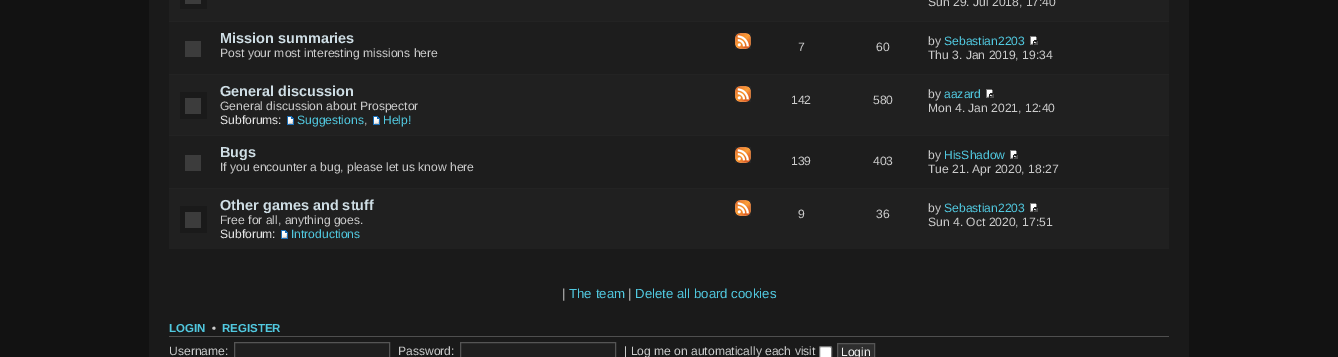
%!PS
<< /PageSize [1338 357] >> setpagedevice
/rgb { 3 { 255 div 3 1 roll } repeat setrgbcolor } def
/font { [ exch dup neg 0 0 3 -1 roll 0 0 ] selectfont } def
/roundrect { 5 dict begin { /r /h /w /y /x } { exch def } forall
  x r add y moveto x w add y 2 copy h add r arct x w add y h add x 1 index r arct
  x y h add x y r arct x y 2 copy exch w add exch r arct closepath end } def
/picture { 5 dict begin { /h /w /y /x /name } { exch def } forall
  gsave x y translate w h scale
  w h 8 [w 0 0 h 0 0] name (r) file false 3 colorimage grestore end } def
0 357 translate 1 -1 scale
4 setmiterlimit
18 18 18 rgb
0 0 1338 357 rectfill
26 26 26 rgb
149 0 1040 357 rectfill
32 32 32 rgb
169 0 1000 21 rectfill
(img/1.rgb) 180 0 27 9 picture
[
  [169 22 1000 52 29 29 29]
  [169 21 1000 1 35 35 35]
  [185 41 16 16 60 60 60]
] { aload pop rgb rectfill } forall
(img/2.rgb) 735 33 16 16 picture
(img/3.rgb) 1030 36 8 9 picture
32 32 32 rgb
169 75 1000 60 rectfill
35 35 35 rgb
169 74 1000 1 rectfill
(img/4.rgb) 180 92 27 27 picture
(img/2.rgb) 735 86 16 16 picture
(img/5.rgb) 287 116 7 9 picture
(img/5.rgb) 373 116 7 9 picture
(img/6.rgb) 986 89 8 9 picture
[
  [169 136 1000 52 29 29 29]
  [169 135 1000 1 35 35 35]
  [185 155 16 16 60 60 60]
] { aload pop rgb rectfill } forall
(img/2.rgb) 735 147 16 16 picture
(img/3.rgb) 1010 150 8 9 picture
32 32 32 rgb
169 189 1000 60 rectfill
35 35 35 rgb
169 188 1000 1 rectfill
(img/4.rgb) 180 206 27 27 picture
(img/2.rgb) 735 200 16 16 picture
(img/5.rgb) 281 230 7 9 picture
(img/6.rgb) 1030 203 8 9 picture
79 79 79 rgb
169 336 1000 1 rectfill
31 31 31 rgb
234.5 342.5 moveto 389.5 342.5 lineto 389.5 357.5 lineto 234.5 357.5 lineto closepath gsave fill grestore
85 85 85 rgb
stroke
31 31 31 rgb
460.5 342.5 moveto 615.5 342.5 lineto 615.5 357.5 lineto 460.5 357.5 lineto closepath gsave fill grestore
85 85 85 rgb
stroke
255 255 255 rgb
819.5 346.5 12 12 1.5 roundrect gsave fill grestore
118 118 118 rgb
stroke
46 46 46 rgb
837.5 343.5 moveto 874.5 343.5 lineto 874.5 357.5 lineto 837.5 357.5 lineto closepath gsave fill grestore
85 85 85 rgb
stroke
/LiberationSans-Regular 12.1 font
204 204 204 rgb
928 6 moveto (Sun 29. Jul 2018, 17:40) show
/LiberationSans-Bold 14.5 font
207 222 229 rgb
220 43 moveto (Mission summaries) show
/LiberationSans-Regular 12.1 font
204 204 204 rgb
[
  [(Post your most interesting missions here) 220 57]
  [(7) 798 51]
  [(60) 876 51]
  [(by) 928 45]
] { aload pop moveto show } forall
81 201 224 rgb
944 45 moveto (Sebastian2203) show
204 204 204 rgb
928 59 moveto (Thu 3. Jan 2019, 19:34) show
/LiberationSans-Bold 14.5 font
207 222 229 rgb
220 96 moveto (General discussion) show
/LiberationSans-Regular 12.1 font
204 204 204 rgb
220 110 moveto (General discussion about Prospector) show
230 230 230 rgb
220 124 moveto (Subforums:) show
81 201 224 rgb
297 124 moveto (Suggestions) show
204 204 204 rgb
364 124 moveto (,) show
81 201 224 rgb
383 124 moveto (Help!) show
204 204 204 rgb
[
  [(142) 791 104]
  [(580) 873 104]
  [(by) 928 98]
] { aload pop moveto show } forall
81 201 224 rgb
944 98 moveto (aazard) show
204 204 204 rgb
928 112 moveto (Mon 4. Jan 2021, 12:40) show
/LiberationSans-Bold 14.5 font
207 222 229 rgb
220 157 moveto (Bugs) show
/LiberationSans-Regular 12.1 font
204 204 204 rgb
[
  [(If you encounter a bug, please let us know here) 220 171]
  [(139) 791 165]
  [(403) 873 165]
  [(by) 928 159]
] { aload pop moveto show } forall
81 201 224 rgb
944 159 moveto (HisShadow) show
204 204 204 rgb
928 173 moveto (Tue 21. Apr 2020, 18:27) show
/LiberationSans-Bold 14.5 font
207 222 229 rgb
220 210 moveto (Other games and stuff) show
/LiberationSans-Regular 12.1 font
204 204 204 rgb
220 224 moveto (Free for all, anything goes.) show
230 230 230 rgb
220 238 moveto (Subforum:) show
81 201 224 rgb
291 238 moveto (Introductions) show
204 204 204 rgb
[
  [(9) 798 218]
  [(36) 876 218]
  [(by) 928 212]
] { aload pop moveto show } forall
81 201 224 rgb
944 212 moveto (Sebastian2203) show
204 204 204 rgb
928 226 moveto (Sun 4. Oct 2020, 17:51) show
/LiberationSans-Regular 13.25 font
562 298 moveto (|) show
81 201 224 rgb
569 298 moveto (The team) show
204 204 204 rgb
628 298 moveto (|) show
81 201 224 rgb
635 298 moveto (Delete all board cookies) show
/LiberationSans-Bold 11.5 font
169 332 moveto (LOGIN) show
204 204 204 rgb
212 332 moveto (•) show
81 201 224 rgb
222 332 moveto (REGISTER) show
/LiberationSans-Regular 12.1 font
204 204 204 rgb
[
  [(Username:) 169 355]
  [(Password:) 398 355]
  [(| Log me on automatically each visit) 624 355]
] { aload pop moveto show } forall
240 240 240 rgb
841 356 moveto (Login) show
showpage
